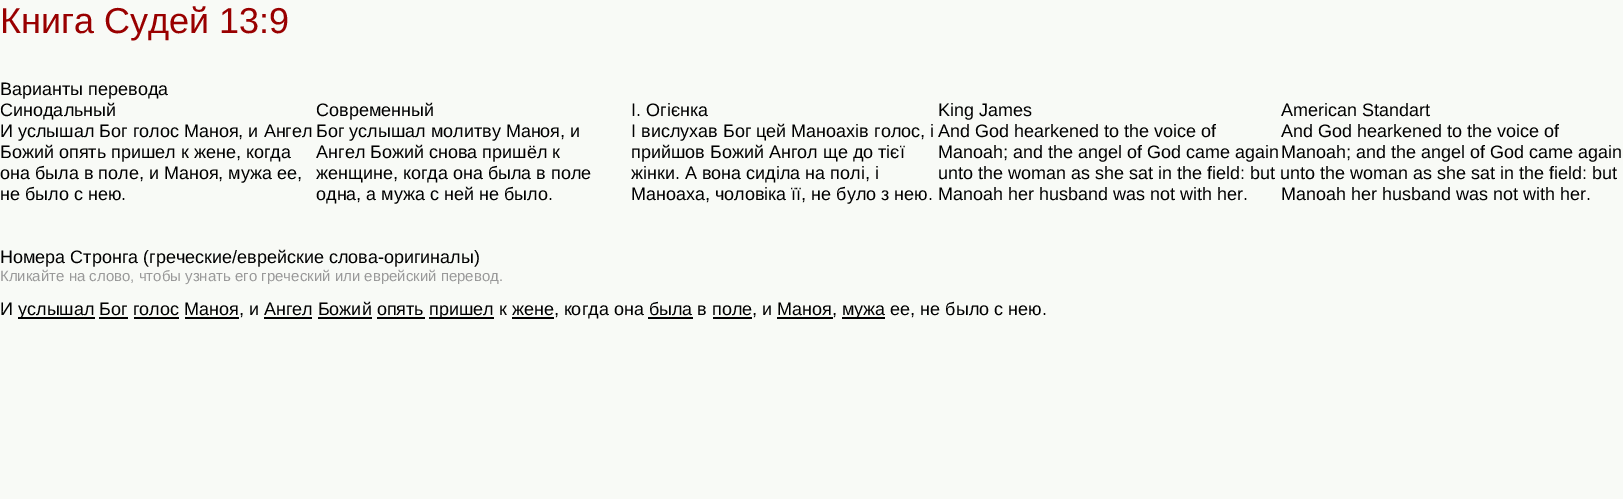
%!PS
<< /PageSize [1623 499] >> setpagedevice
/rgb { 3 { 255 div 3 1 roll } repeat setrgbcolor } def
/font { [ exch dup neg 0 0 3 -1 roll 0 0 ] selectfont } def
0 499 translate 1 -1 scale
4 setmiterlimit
248 250 246 rgb
0 0 1623 499 rectfill
[
  [18 317 77 2 0 0 0]
  [429 317 65 2 0 0 0]
  [842 317 43 2 0 0 0]
  [99 317 29 2 0 0 0]
  [134 317 45 2 0 0 0]
  [185 317 54 2 0 0 0]
  [264 317 48 2 0 0 0]
  [318 317 54 2 0 0 0]
  [377 317 48 2 0 0 0]
  [512 317 42 2 0 0 0]
  [648 317 45 2 0 0 0]
  [713 317 39 2 0 0 0]
  [777 317 56 2 0 0 0]
] { aload pop rgb rectfill } forall
/LiberationSans-Regular 36 font
153 0 0 rgb
0 33 moveto (Книга Судей 13:9) show
/LiberationSans-Regular 18 font
0 0 0 rgb
[
  [(Варианты перевода) 0 95]
  [(Синодальный) 0 116]
  [(И услышал Бог голос Маноя, и Ангел) 0 137]
  [(Божий опять пришел к жене, когда) 0 158]
  [(она была в поле, и Маноя, мужа ее,) 0 179]
  [(не было с нею.) 0 200]
  [(Современный) 316 116]
  [(Бог услышал молитву Маноя, и) 316 137]
  [(Ангел Божий снова пришёл к) 316 158]
  [(женщине, когда она была в поле) 316 179]
  [(одна, а мужа с ней не было.) 316 200]
  [(I. Oгієнка) 631 116]
  [(І вислухав Бог цей Маноахів голос, і) 631 137]
  [(прийшов Божий Ангол ще до тієї) 631 158]
  [(жінки. А вона сиділа на полі, і) 631 179]
  [(Маноаха, чоловіка її, не було з нею.) 631 200]
  [(King James) 938 116]
  [(And God hearkened to the voice of) 938 137]
  [(Manoah; and the angel of God came again) 938 158]
  [(unto the woman as she sat in the field: but unto the woman as she sat in the field: but) 938 179]
  [(Manoah her husband was not with her.) 938 200]
  [(American Standart) 1281 116]
  [(And God hearkened to the voice of) 1281 137]
  [(Manoah; and the angel of God came again) 1281 158]
  [(Manoah her husband was not with her.) 1281 200]
  [(Номера Стронга \(греческие/еврейские слова-оригиналы\)) 0 263]
] { aload pop moveto show } forall
/LiberationSans-Regular 15 font
153 153 153 rgb
0 281 moveto (Кликайте на слово, чтобы узнать его греческий или еврейский перевод.) show
/LiberationSans-Regular 18 font
0 0 0 rgb
[
  [(И) 0 315]
  [(услышал Бог голос Маноя, и Ангел Божий опять) 18 315]
  [(пришел к жене, когда она была в поле, и Маноя,) 429 315]
  [(мужа ее, не было с нею.) 842 315]
] { aload pop moveto show } forall
showpage
